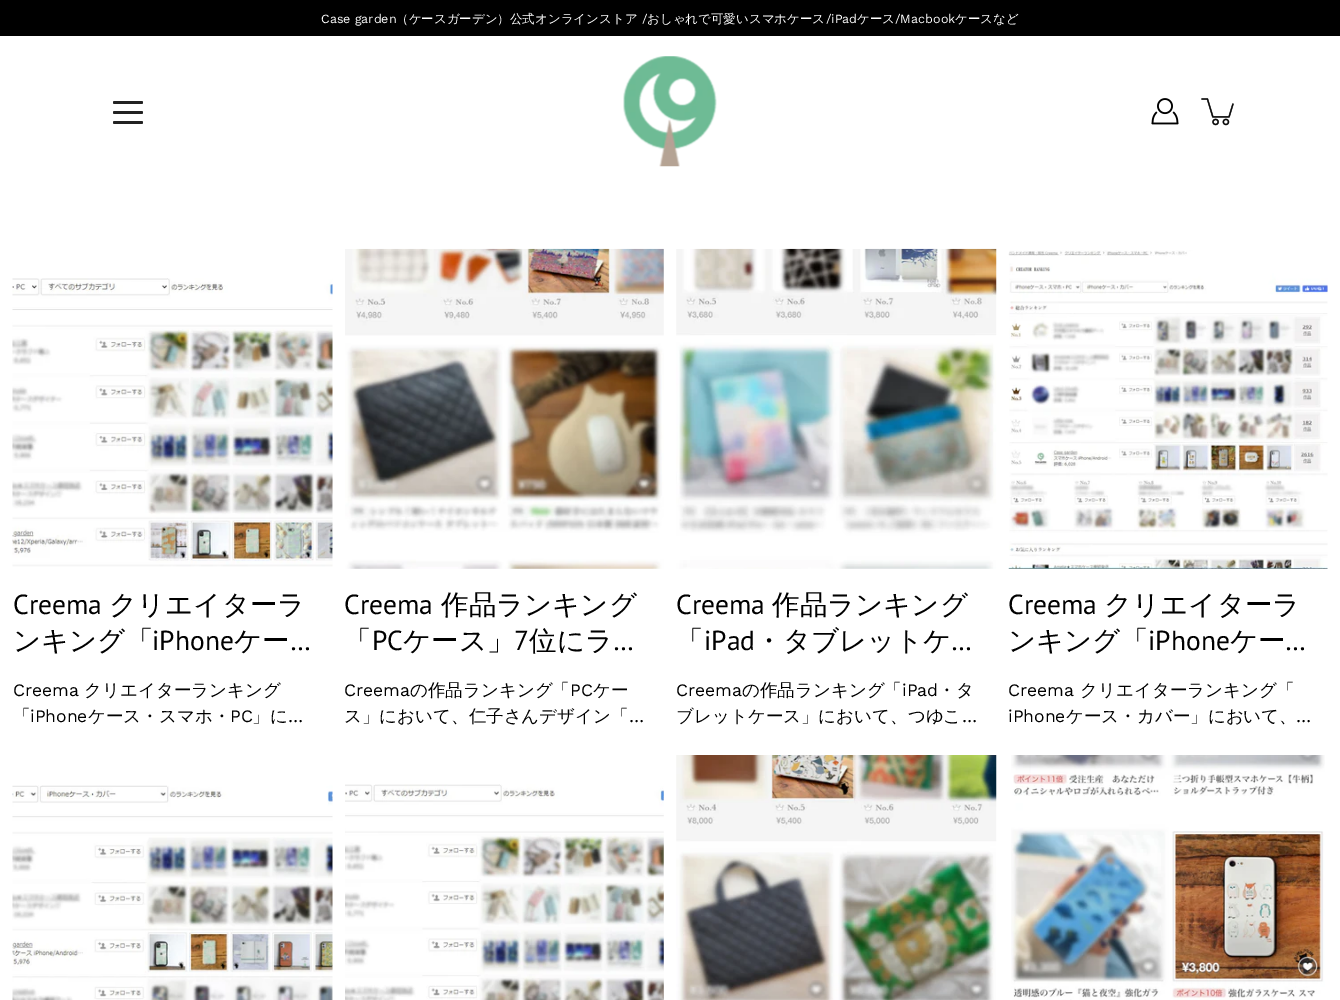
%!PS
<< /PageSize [1340 1000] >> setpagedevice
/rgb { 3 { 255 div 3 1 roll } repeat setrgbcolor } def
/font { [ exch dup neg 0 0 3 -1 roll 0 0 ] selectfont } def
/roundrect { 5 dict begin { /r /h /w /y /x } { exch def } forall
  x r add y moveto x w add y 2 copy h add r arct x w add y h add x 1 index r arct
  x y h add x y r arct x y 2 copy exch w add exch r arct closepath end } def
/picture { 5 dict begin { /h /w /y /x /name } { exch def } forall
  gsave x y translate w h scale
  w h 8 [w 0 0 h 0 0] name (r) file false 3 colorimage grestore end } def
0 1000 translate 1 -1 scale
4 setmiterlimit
255 255 255 rgb
0 0 1340 1000 rectfill
0 0 0 rgb
0 0 1340 36 rectfill
(img/1.rgb) 623 56 94 111 picture
34 34 34 rgb
113 111 30 3 1.5 roundrect fill
113 101 30 3 1.5 roundrect fill
113 121 30 3 1.5 roundrect fill
(img/2.rgb) 1151 98 28 27 picture
(img/3.rgb) 1201 98 33 28 picture
(img/4.rgb) 12 278 321 289 picture
(img/5.rgb) 345 248 319 321 picture
(img/6.rgb) 676 248 321 321 picture
(img/7.rgb) 1008 250 320 319 picture
(img/8.rgb) 12 785 321 215 picture
(img/9.rgb) 345 784 319 216 picture
(img/10.rgb) 676 755 321 245 picture
(img/11.rgb) 1011 755 314 245 picture
/WorkSans-Regular 12.5 font
255 255 255 rgb
321 23 moveto (Case garden) show
/WenQuanYiZenHei-Medium 12.5 font
396 23 moveto (（ケースガーデン）公式オンラインストア) show
/WorkSans-Regular 12.5 font
642 23 moveto (/) show
/WenQuanYiZenHei-Medium 12.5 font
647 23 moveto (おしゃれで可愛いスマホケース) show
/WorkSans-Regular 12.5 font
826 23 moveto (/iPad) show
/WenQuanYiZenHei-Medium 12.5 font
857 23 moveto (ケース) show
/WorkSans-Regular 12.5 font
895 23 moveto (/Macbook) show
/WenQuanYiZenHei-Medium 12.5 font
955 23 moveto (ケースなど) show
/PTSans-Regular 27.5 font
0 0 0 rgb
13 614 moveto (Creema) show
/WenQuanYiZenHei-Medium 27.5 font
109 614 moveto (クリエイターラ) show
13 650 moveto (ンキング「) show
/PTSans-Regular 27.5 font
152 650 moveto (iPhone) show
/WenQuanYiZenHei-Medium 27.5 font
234 650 moveto (ケー) show
/PTSans-Regular 27.5 font
290 650 moveto (…) show
/WorkSans-Regular 17.5 font
13 696 moveto (Creema) show
/WenQuanYiZenHei-Medium 17.5 font
84 696 moveto (クリエイターランキング) show
13 722 moveto (「) show
/WorkSans-Regular 17.5 font
30 722 moveto (iPhone) show
/WenQuanYiZenHei-Medium 17.5 font
88 722 moveto (ケース・スマホ・) show
/WorkSans-Regular 17.5 font
230 722 moveto (PC) show
/WenQuanYiZenHei-Medium 17.5 font
252 722 moveto (」に) show
/WorkSans-Regular 17.5 font
288 722 moveto (…) show
/PTSans-Regular 27.5 font
344 614 moveto (Creema) show
/WenQuanYiZenHei-Medium 27.5 font
441 614 moveto (作品ランキング) show
344 650 moveto (「) show
/PTSans-Regular 27.5 font
372 650 moveto (PC) show
/WenQuanYiZenHei-Medium 27.5 font
403 650 moveto (ケース」) show
/PTSans-Regular 27.5 font
514 650 moveto (7) show
/WenQuanYiZenHei-Medium 27.5 font
529 650 moveto (位にラ) show
/PTSans-Regular 27.5 font
613 650 moveto (…) show
/WorkSans-Regular 17.5 font
344 696 moveto (Creema) show
/WenQuanYiZenHei-Medium 17.5 font
410 696 moveto (の作品ランキング「) show
/WorkSans-Regular 17.5 font
570 696 moveto (PC) show
/WenQuanYiZenHei-Medium 17.5 font
593 696 moveto (ケー) show
344 722 moveto (ス」において、仁子さんデザイン「) show
/WorkSans-Regular 17.5 font
629 722 moveto (…) show
/PTSans-Regular 27.5 font
676 614 moveto (Creema) show
/WenQuanYiZenHei-Medium 27.5 font
772 614 moveto (作品ランキング) show
676 650 moveto (「) show
/PTSans-Regular 27.5 font
704 650 moveto (iPad) show
/WenQuanYiZenHei-Medium 27.5 font
755 650 moveto (・タブレットケ) show
/PTSans-Regular 27.5 font
951 650 moveto (…) show
/WorkSans-Regular 17.5 font
676 696 moveto (Creema) show
/WenQuanYiZenHei-Medium 17.5 font
742 696 moveto (の作品ランキング「) show
/WorkSans-Regular 17.5 font
902 696 moveto (iPad) show
/WenQuanYiZenHei-Medium 17.5 font
938 696 moveto (・タ) show
676 722 moveto (ブレットケース」において、つゆこ) show
/WorkSans-Regular 17.5 font
962 722 moveto (…) show
/PTSans-Regular 27.5 font
1008 614 moveto (Creema) show
/WenQuanYiZenHei-Medium 27.5 font
1104 614 moveto (クリエイターラ) show
1008 650 moveto (ンキング「) show
/PTSans-Regular 27.5 font
1148 650 moveto (iPhone) show
/WenQuanYiZenHei-Medium 27.5 font
1230 650 moveto (ケー) show
/PTSans-Regular 27.5 font
1285 650 moveto (…) show
/WorkSans-Regular 17.5 font
1008 696 moveto (Creema) show
/WenQuanYiZenHei-Medium 17.5 font
1080 696 moveto (クリエイターランキング「) show
/WorkSans-Regular 17.5 font
1008 722 moveto (iPhone) show
/WenQuanYiZenHei-Medium 17.5 font
1066 722 moveto (ケース・カバー」において、) show
/WorkSans-Regular 17.5 font
1296 722 moveto (…) show
showpage
